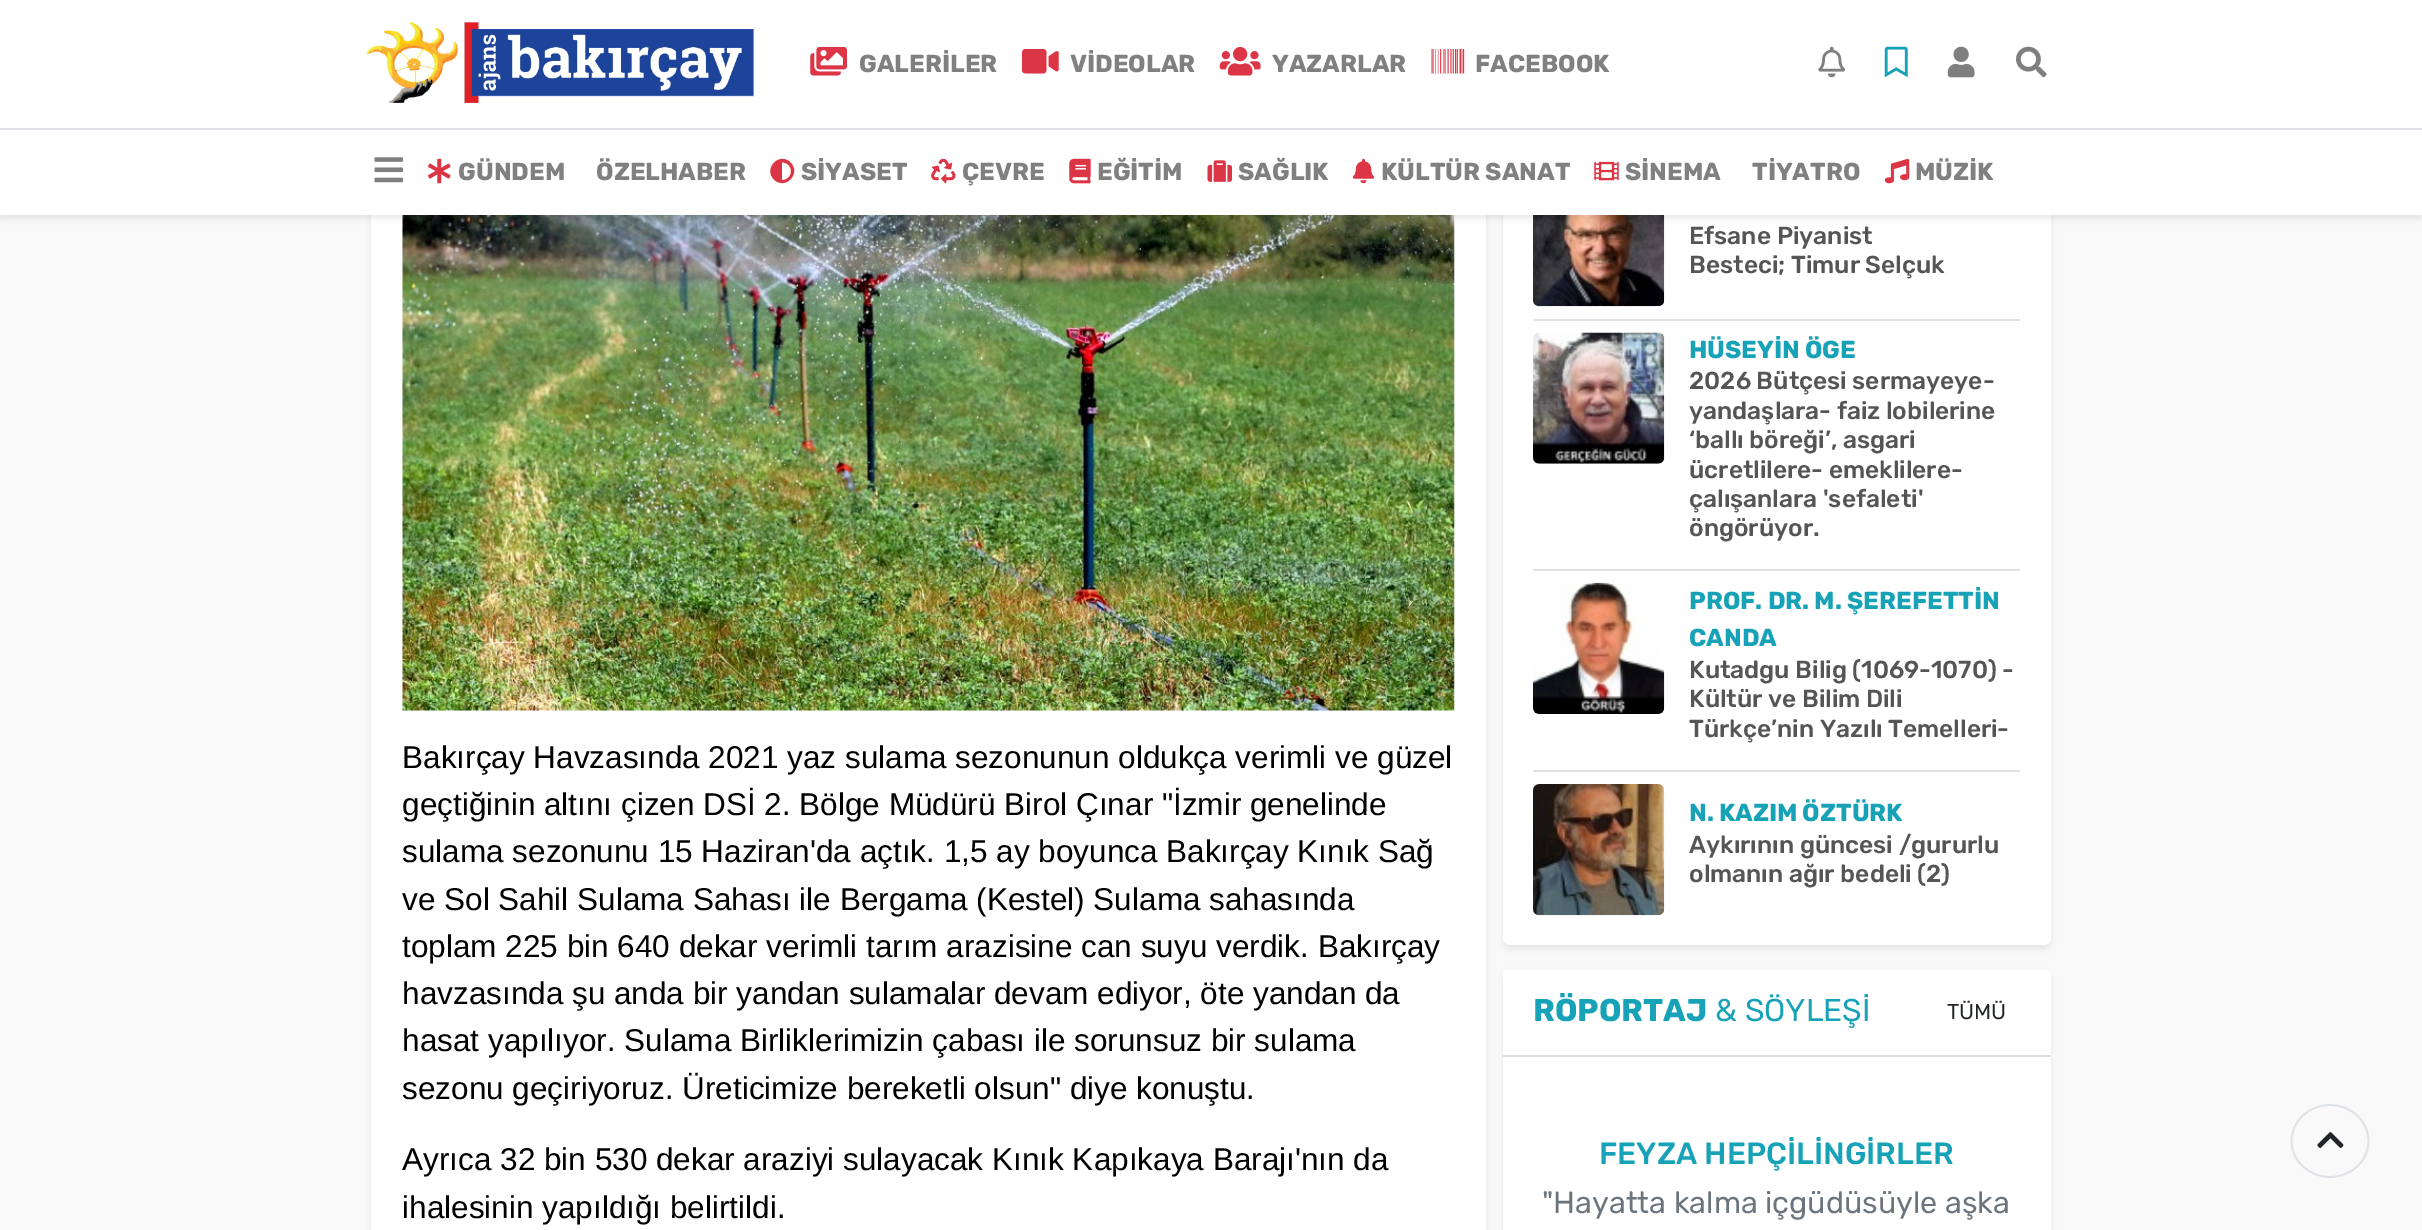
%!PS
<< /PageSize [2422 1230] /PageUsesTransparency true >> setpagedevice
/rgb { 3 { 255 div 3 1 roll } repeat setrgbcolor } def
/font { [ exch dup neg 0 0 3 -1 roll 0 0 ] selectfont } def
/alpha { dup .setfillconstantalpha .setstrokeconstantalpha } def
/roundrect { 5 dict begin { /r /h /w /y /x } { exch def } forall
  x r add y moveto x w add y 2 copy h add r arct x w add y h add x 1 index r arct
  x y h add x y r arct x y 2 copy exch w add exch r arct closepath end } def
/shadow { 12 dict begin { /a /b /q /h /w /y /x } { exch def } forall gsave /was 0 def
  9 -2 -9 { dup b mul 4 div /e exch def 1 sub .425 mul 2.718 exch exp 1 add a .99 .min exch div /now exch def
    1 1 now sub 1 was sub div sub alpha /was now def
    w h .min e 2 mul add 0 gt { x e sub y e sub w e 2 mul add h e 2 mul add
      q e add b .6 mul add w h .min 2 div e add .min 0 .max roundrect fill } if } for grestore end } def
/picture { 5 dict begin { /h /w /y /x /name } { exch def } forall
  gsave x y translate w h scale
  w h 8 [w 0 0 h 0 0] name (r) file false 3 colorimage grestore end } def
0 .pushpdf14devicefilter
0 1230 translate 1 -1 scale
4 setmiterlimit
249 249 249 rgb
0 0 2422 1230 rectfill
0 0 0 rgb
371 -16 1115 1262 7 3 0.07 shadow
255 255 255 rgb
371 215 1115 1015 rectfill
(img/18.rgb) 402 215 1053 496 picture
0 0 0 rgb
1503 -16 548 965 7 3 0.07 shadow
255 255 255 rgb
1503 -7 548 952 7 roundrect fill
(img/19.rgb) 1533 215 132 92 picture
0 0 0 rgb
0 4 2422 215 0 3 0.07 shadow
255 255 255 rgb
0 0 2422 215 rectfill
222 226 230 rgb
0 128 2422 2 rectfill
(img/1.rgb) 366 22 388 81 picture
(img/2.rgb) 810 46 37 30 picture
(img/3.rgb) 1022 49 37 25 picture
(img/4.rgb) 1219 47 42 29 picture
(img/5.rgb) 1431 49 34 25 picture
(img/6.rgb) 1818 46 28 32 picture
(img/7.rgb) 1884 46 24 32 picture
(img/8.rgb) 1947 46 28 32 picture
(img/9.rgb) 2016 46 31 32 picture
(img/10.rgb) 374 157 30 26 picture
(img/11.rgb) 428 158 23 26 picture
220 53 69 rgb
774 179.5 moveto 763 168.5 779.5 151.5 790.5 162.5 curveto 801.5 173.5 785 190.5 774 179.5 curveto closepath 782 180 moveto 794 180 794 162.5 782 162.5 curveto closepath fill
(img/12.rgb) 931 158 25 26 picture
(img/13.rgb) 1069 158 22 26 picture
(img/14.rgb) 1207 160 25 22 picture
(img/15.rgb) 1352 158 23 26 picture
(img/16.rgb) 1594 161 25 20 picture
(img/17.rgb) 1884 158 26 26 picture
222 226 230 rgb
1533 319 487 2 rectfill
1533 569 487 2 rectfill
(img/20.rgb) 1533 332 132 132 picture
1533 770 487 2 rectfill
(img/21.rgb) 1533 582 132 132 picture
(img/22.rgb) 1533 784 132 132 picture
0 0 0 rgb
1503 973 548 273 7 3 0.07 shadow
255 255 255 rgb
1503 970 548 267 7 roundrect fill
1507 970 moveto 2047 970 lineto 2049 970 2051 972 2051 974 curveto 2051 1057 lineto 1503 1057 lineto 1503 974 lineto 1503 972 1505 970 1507 970 curveto closepath fill
223 223 223 rgb
1503 1055 548 2 rectfill
222 226 230 rgb
1.8 setlinewidth
2330 1105 moveto 2351.5 1105 2368.5 1121 2368.5 1141 curveto 2368.5 1161 2351.5 1177 2330 1177 curveto 2309 1177 2291.5 1161 2291.5 1141 curveto 2291.5 1121 2309 1105 2330 1105 curveto closepath stroke
(img/23.rgb) 2317 1132 27 16 picture
/Rubik-Bold 24.5 font
128 128 128 rgb
[
  [(GALERİLER) 859 72]
  [(VİDEOLAR) 1070 72]
  [(YAZARLAR) 1272 72]
  [(FACEBOOK) 1475 72]
  [(GÜNDEM) 458 180]
  [(ÖZELHABER) 596 180]
  [(SİYASET) 801 180]
  [(ÇEVRE) 962 180]
  [(EĞİTİM) 1097 180]
  [(SAĞLIK) 1238 180]
  [(KÜLTÜR SANAT) 1381 180]
  [(SİNEMA) 1625 180]
  [(TİYATRO) 1752 180]
  [(MÜZİK) 1915 180]
] { aload pop moveto show } forall
/LiberationSans-Regular 31.5 font
0 0 0 rgb
[
  [(Bakırçay Havzasında 2021 yaz sulama sezonunun oldukça verimli ve güzel) 402 768]
  [(geçtiğinin altını çizen DSİ 2. Bölge Müdürü Birol Çınar "İzmir genelinde) 402 815]
  [(sulama sezonunu 15 Haziran'da açtık. 1,5 ay boyunca Bakırçay Kınık Sağ) 402 862]
  [(ve Sol Sahil Sulama Sahası ile Bergama \(Kestel\) Sulama sahasında) 402 910]
  [(toplam 225 bin 640 dekar verimli tarım arazisine can suyu verdik. Bakırçay) 402 957]
  [(havzasında şu anda bir yandan sulamalar devam ediyor, öte yandan da) 402 1004]
  [(hasat yapılıyor. Sulama Birliklerimizin çabası ile sorunsuz bir sulama) 402 1051]
  [(sezonu geçiriyoruz. Üreticimize bereketli olsun" diye konuştu.) 402 1099]
  [(Ayrıca 32 bin 530 dekar araziyi sulayacak Kınık Kapıkaya Barajı'nın da) 402 1170]
  [(ihalesinin yapıldığı belirtildi.) 402 1218]
] { aload pop moveto show } forall
/Rubik-Medium 24.5 font
85 85 85 rgb
1689 244 moveto (Efsane Piyanist) show
1689 273 moveto (Besteci; Timur Selçuk) show
/Rubik-Bold 24.5 font
23 162 184 rgb
1689 358 moveto (HÜSEYİN ÖGE) show
/Rubik-Medium 24.5 font
85 85 85 rgb
[
  [(2026 Bütçesi sermayeye-) 1689 389]
  [(yandaşlara- faiz lobilerine) 1689 419]
  [(‘ballı böreği’, asgari) 1689 448]
  [(ücretlilere- emeklilere-) 1689 478]
  [(çalışanlara 'sefaleti') 1689 507]
  [(öngörüyor.) 1689 536]
] { aload pop moveto show } forall
/Rubik-Bold 24.5 font
23 162 184 rgb
1689 609 moveto (PROF. DR. M. ŞEREFETTİN) show
1689 646 moveto (CANDA) show
/Rubik-Medium 24.5 font
85 85 85 rgb
[
  [(Kutadgu Bilig \(1069-1070\) -) 1689 678]
  [(Kültür ve Bilim Dili) 1689 707]
  [(Türkçe’nin Yazılı Temelleri-) 1689 737]
] { aload pop moveto show } forall
/Rubik-Bold 24.5 font
23 162 184 rgb
1689 821 moveto (N. KAZIM ÖZTÜRK) show
/Rubik-Medium 24.5 font
85 85 85 rgb
1689 853 moveto (Aykırının güncesi /gururlu) show
1689 882 moveto (olmanın ağır bedeli \(2\)) show
/Rubik-Bold 31.5 font
23 162 184 rgb
1533 1021 moveto (RÖPORTAJ) show
/Rubik-Regular 31.5 font
1715 1021 moveto (& SÖYLEŞİ) show
/Rubik-Regular 21.5 font
33 37 41 rgb
1947 1019 moveto (TÜMÜ) show
/Rubik-Medium 30.6 font
23 162 184 rgb
1599 1164 moveto (FEYZA HEPÇİLİNGİRLER) show
/Rubik-Regular 30.6 font
108 117 125 rgb
1542 1213 moveto ("Hayatta kalma içgüdüsüyle aşka) show
.poppdf14devicefilter showpage
